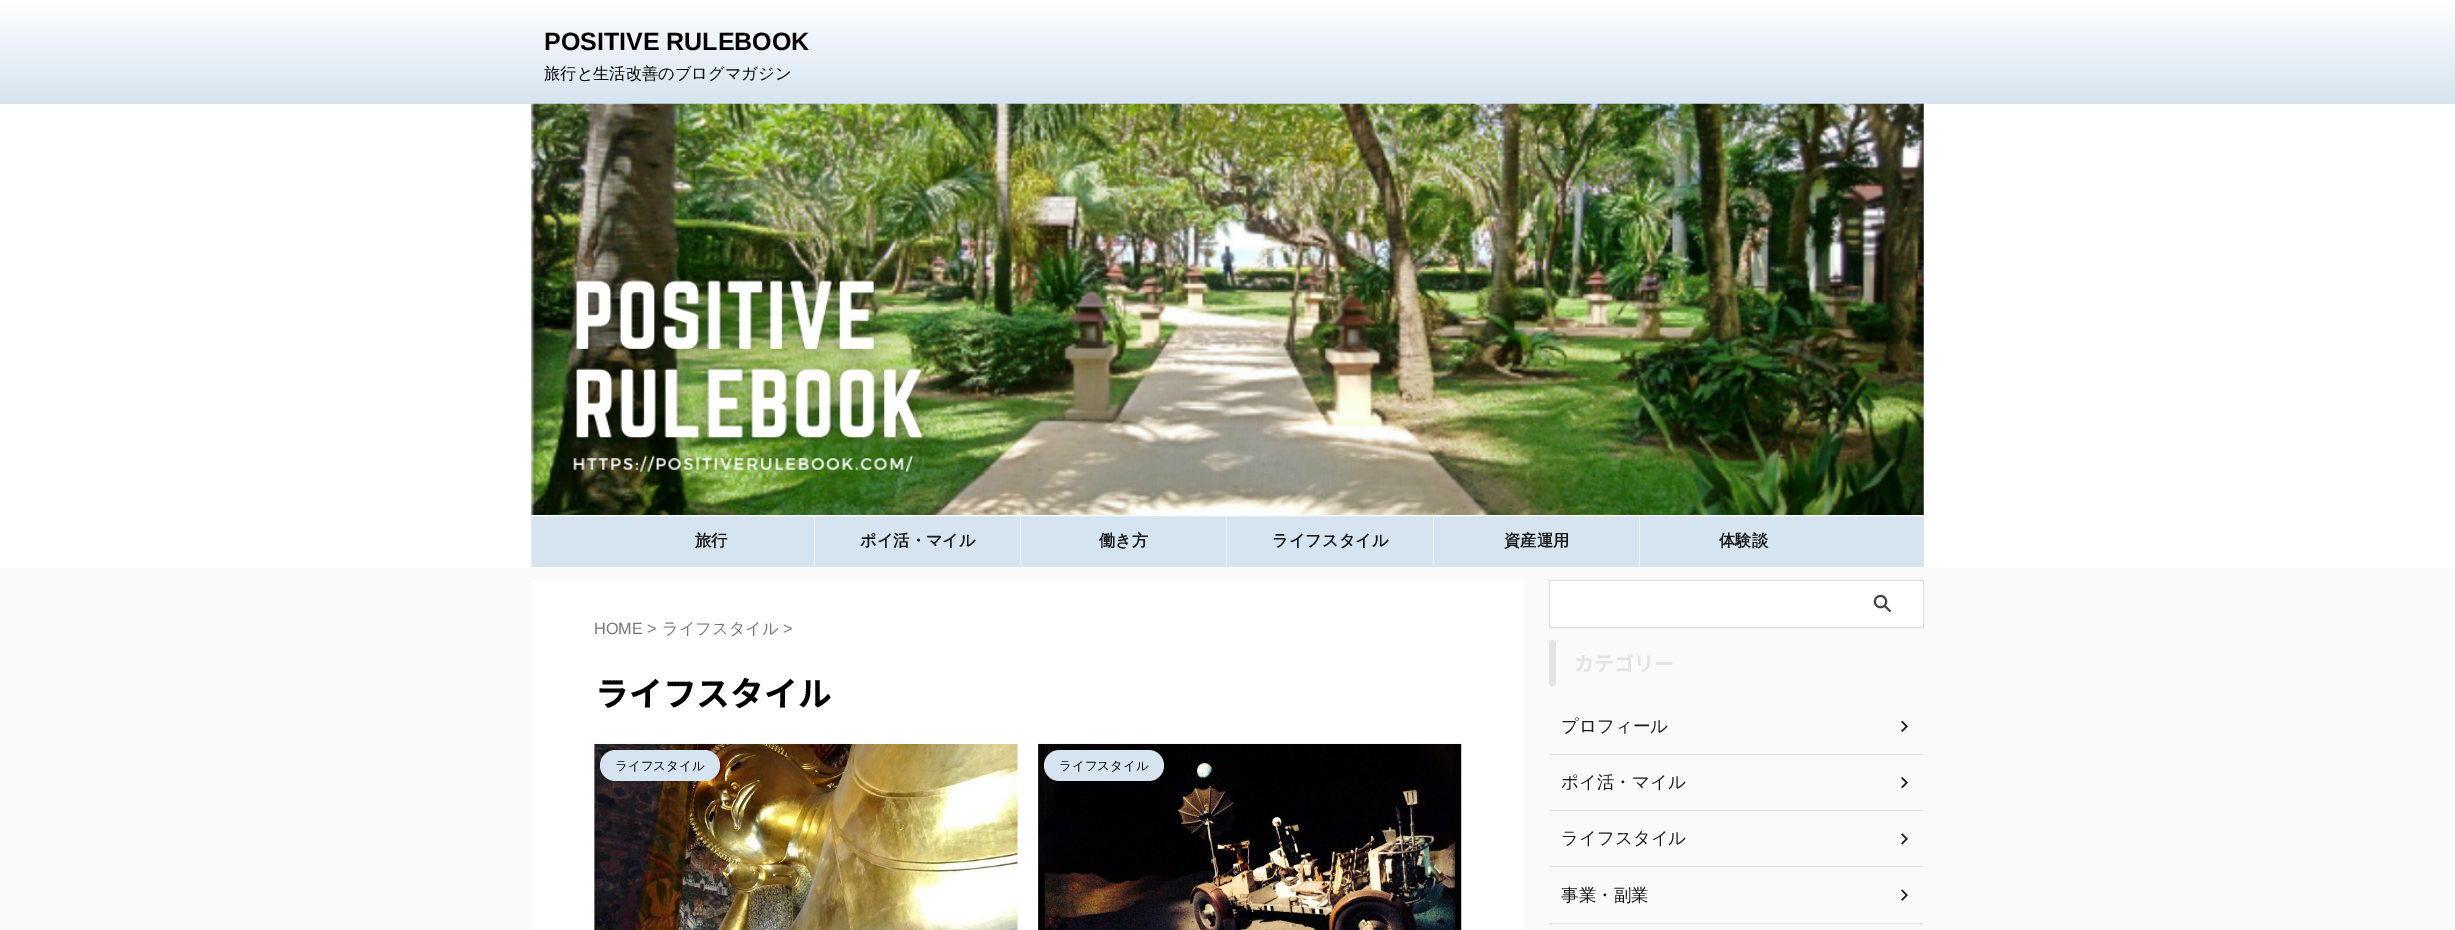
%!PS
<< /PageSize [2455 930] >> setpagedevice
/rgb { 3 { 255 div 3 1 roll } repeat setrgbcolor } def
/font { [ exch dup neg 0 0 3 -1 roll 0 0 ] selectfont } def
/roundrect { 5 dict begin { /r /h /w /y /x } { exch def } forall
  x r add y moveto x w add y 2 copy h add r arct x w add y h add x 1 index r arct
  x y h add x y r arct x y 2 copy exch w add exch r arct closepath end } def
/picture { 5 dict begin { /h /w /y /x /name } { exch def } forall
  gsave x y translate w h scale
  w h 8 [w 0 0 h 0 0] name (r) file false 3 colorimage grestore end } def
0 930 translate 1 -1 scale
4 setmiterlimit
250 250 250 rgb
0 0 2455 930 rectfill
255 255 255 rgb
0 104 2455 464 rectfill
gsave 0 0 moveto 2455 0 lineto 2455 104 lineto 0 104 lineto closepath clip newpath
<< /ShadingType 2 /ColorSpace /DeviceRGB /Coords [1228 0 1228 104] /Extend [true true] /Function << /FunctionType 2 /Domain [0 1] /C0 [1 1 1] /C1 [0.835 0.894 0.937] /N 1 >> >> shfill grestore
(img/1.rgb) 531 103 1393 412 picture
213 228 239 rgb
530.5 515.5 1394 52 0.5 roundrect gsave fill grestore
255 255 255 rgb
stroke
[
  [814 516 1 50 240 240 240]
  [1020 516 1 50 240 240 240]
  [1226 516 1 50 240 240 240]
  [1433 516 1 50 240 240 240]
  [1639 516 1 50 240 240 240]
] { aload pop rgb rectfill } forall
255 255 255 rgb
531 580 993 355 5 roundrect fill
(img/2.rgb) 594 743 424 187 picture
213 228 239 rgb
600 750 120 31 15.5 roundrect fill
(img/3.rgb) 1038 743 424 187 picture
1044 750 120 31 15.5 roundrect fill
224 224 224 rgb
1549.5 580.5 374 47 rectstroke
255 255 255 rgb
1550 581 373 45 rectfill
(img/4.rgb) 1873 594 19 19 picture
227 227 227 rgb
1549 640 7 46 3.5 roundrect fill
225 225 225 rgb
1549 754 375 1 rectfill
(img/5.rgb) 1901 720 7 12 picture
1549 810 375 1 rectfill
(img/6.rgb) 1901 777 7 12 picture
1549 866 375 1 rectfill
(img/7.rgb) 1901 833 7 12 picture
1549 923 375 1 rectfill
(img/8.rgb) 1901 889 7 12 picture
/LiberationSans-Bold 25 font
0 0 0 rgb
544 50 moveto (POSITIVE RULEBOOK) show
/WenQuanYiZenHei-Medium 16.25 font
544 79 moveto (旅行と生活改善のブログマガジン) show
/WenQuanYiZenHei-Bold 16.25 font
26 26 26 rgb
[
  [(旅行) 695 546]
  [(ポイ活・マイル) 860 546]
  [(働き方) 1099 546]
  [(ライフスタイル) 1272 546]
  [(資産運用) 1504 546]
  [(体験談) 1719 546]
] { aload pop moveto show } forall
/LiberationSans-Regular 16.25 font
119 119 119 rgb
594 634 moveto (HOME >) show
/WenQuanYiZenHei-Medium 16.25 font
662 634 moveto (ライフスタイル) show
/LiberationSans-Regular 16.25 font
783 634 moveto (>) show
/NotoSansJP-Bold 33.75 font
0 0 0 rgb
595 706 moveto (ライフスタイル) show
/WenQuanYiZenHei-Medium 12.5 font
615 770 moveto (ライフスタイル) show
1059 770 moveto (ライフスタイル) show
/NotoSansJP-Bold 20 font
227 227 227 rgb
1574 671 moveto (カテゴリー) show
/WenQuanYiZenHei-Medium 17.5 font
26 26 26 rgb
[
  [(プロフィール) 1561 732]
  [(ポイ活・マイル) 1561 788]
  [(ライフスタイル) 1561 844]
  [(事業・副業) 1561 901]
] { aload pop moveto show } forall
showpage
